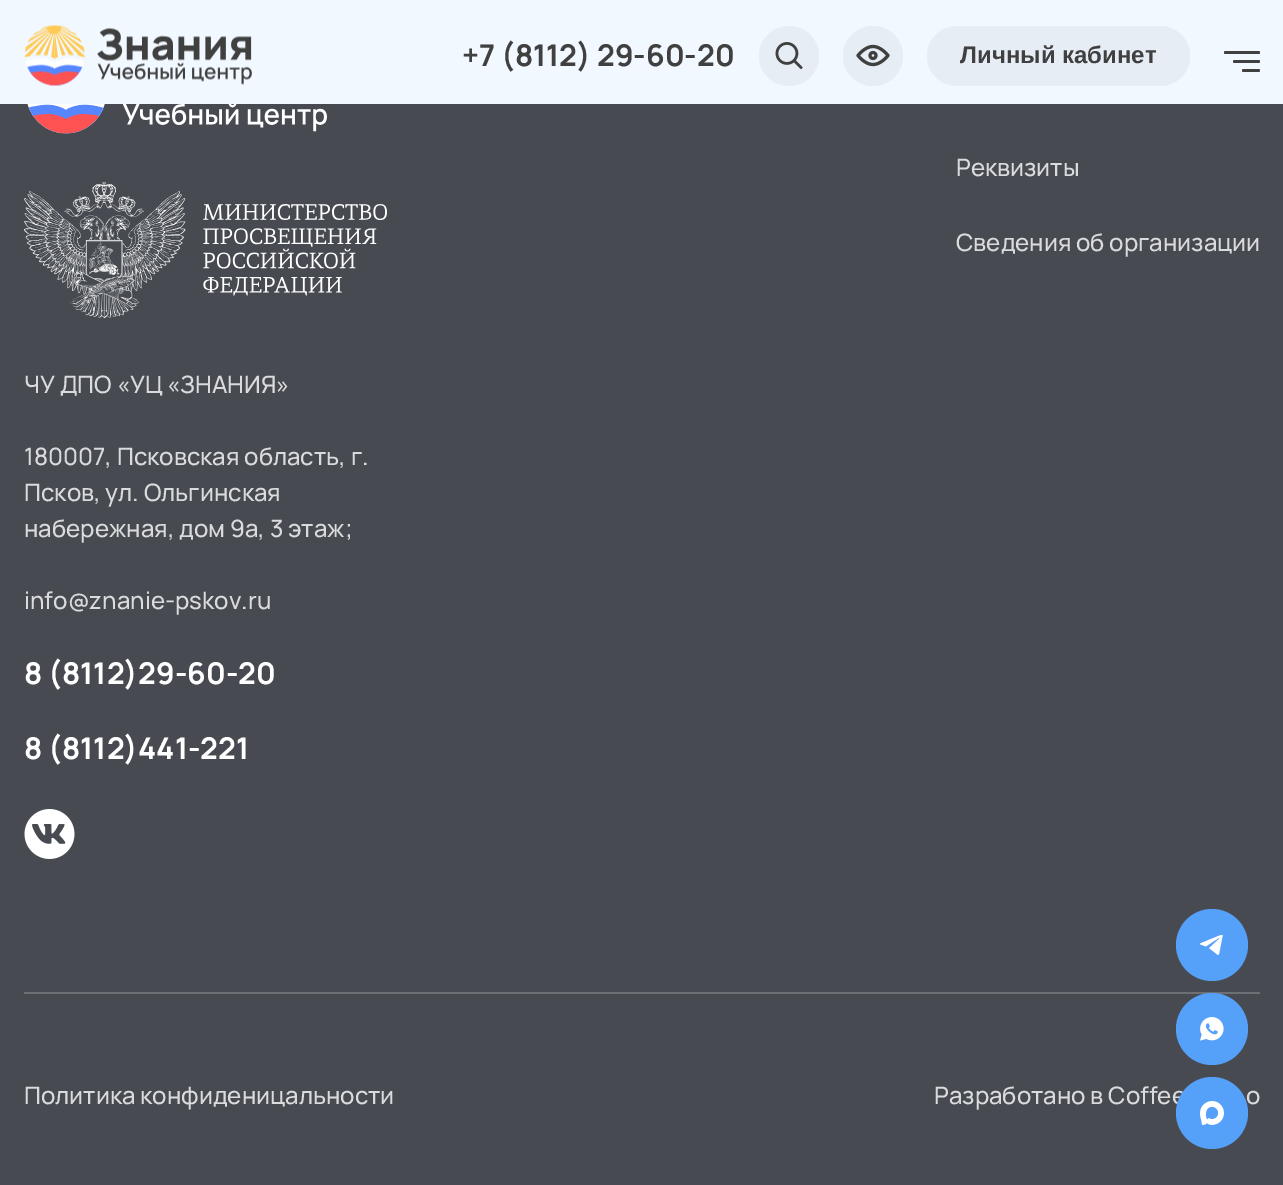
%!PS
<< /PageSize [1283 1185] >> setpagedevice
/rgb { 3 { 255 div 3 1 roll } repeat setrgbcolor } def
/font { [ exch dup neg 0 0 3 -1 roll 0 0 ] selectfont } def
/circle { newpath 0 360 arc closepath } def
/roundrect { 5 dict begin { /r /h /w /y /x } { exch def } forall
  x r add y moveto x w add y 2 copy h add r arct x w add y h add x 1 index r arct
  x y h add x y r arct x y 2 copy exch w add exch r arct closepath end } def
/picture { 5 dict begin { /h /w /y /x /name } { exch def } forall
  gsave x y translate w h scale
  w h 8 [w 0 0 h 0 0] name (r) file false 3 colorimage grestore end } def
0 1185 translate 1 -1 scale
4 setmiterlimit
71 75 81 rgb
0 0 1283 1185 rectfill
241 248 255 rgb
0 0 1283 104 rectfill
(img/1.rgb) 24 25 228 61 picture
230 237 244 rgb
789 56 30 circle fill
(img/2.rgb) 775 42 28 27 picture
873 56 30 circle fill
(img/3.rgb) 856 44 34 23 picture
927 26 263 60 30 roundrect fill
64 64 64 rgb
1224 51 36 3 1.5 roundrect fill
1233 60 27 3 1.5 roundrect fill
1242 69 18 3 1.5 roundrect fill
(img/4.rgb) 27 104 300 30 picture
(img/5.rgb) 24 182 363 136 picture
(img/6.rgb) 24 809 51 50 picture
108 111 116 rgb
24 992 1236 2 rectfill
85 160 248 rgb
1212 945 36 circle fill
(img/7.rgb) 1200 935 23 20 picture
1212 1029 36 circle fill
(img/8.rgb) 1200 1017 24 24 picture
/Manrope-Bold 30 font
64 64 64 rgb
462 66 moveto (+7 \(8112\) 29-60-20) show
/LiberationSans-Bold 24 font
960 63 moveto (Личный кабинет) show
/Manrope-Medium 24 font
218 219 220 rgb
[
  [(Реквизиты) 956 176]
  [(Сведения об организации) 956 251]
  [(ЧУ ДПО «УЦ «ЗНАНИЯ») 24 393]
  [(180007, Псковская область, г.) 24 465]
  [(Псков, ул. Ольгинская) 24 501]
  [(набережная, дом 9а, 3 этаж;) 24 537]
  [(info@znanie-pskov.ru) 24 609]
] { aload pop moveto show } forall
/Manrope-Bold 30 font
255 255 255 rgb
24 684 moveto (8 \(8112\)29-60-20) show
24 759 moveto (8 \(8112\)441-221) show
/Manrope-Medium 24 font
218 219 220 rgb
[
  [(Политика конфиденицальности) 24 1104]
  [(Разработано в Coffee) 934 1104]
  [(o) 1246 1104]
] { aload pop moveto show } forall
85 160 248 rgb
1212 1113 36 circle fill
(img/9.rgb) 1200 1101 24 24 picture
showpage
